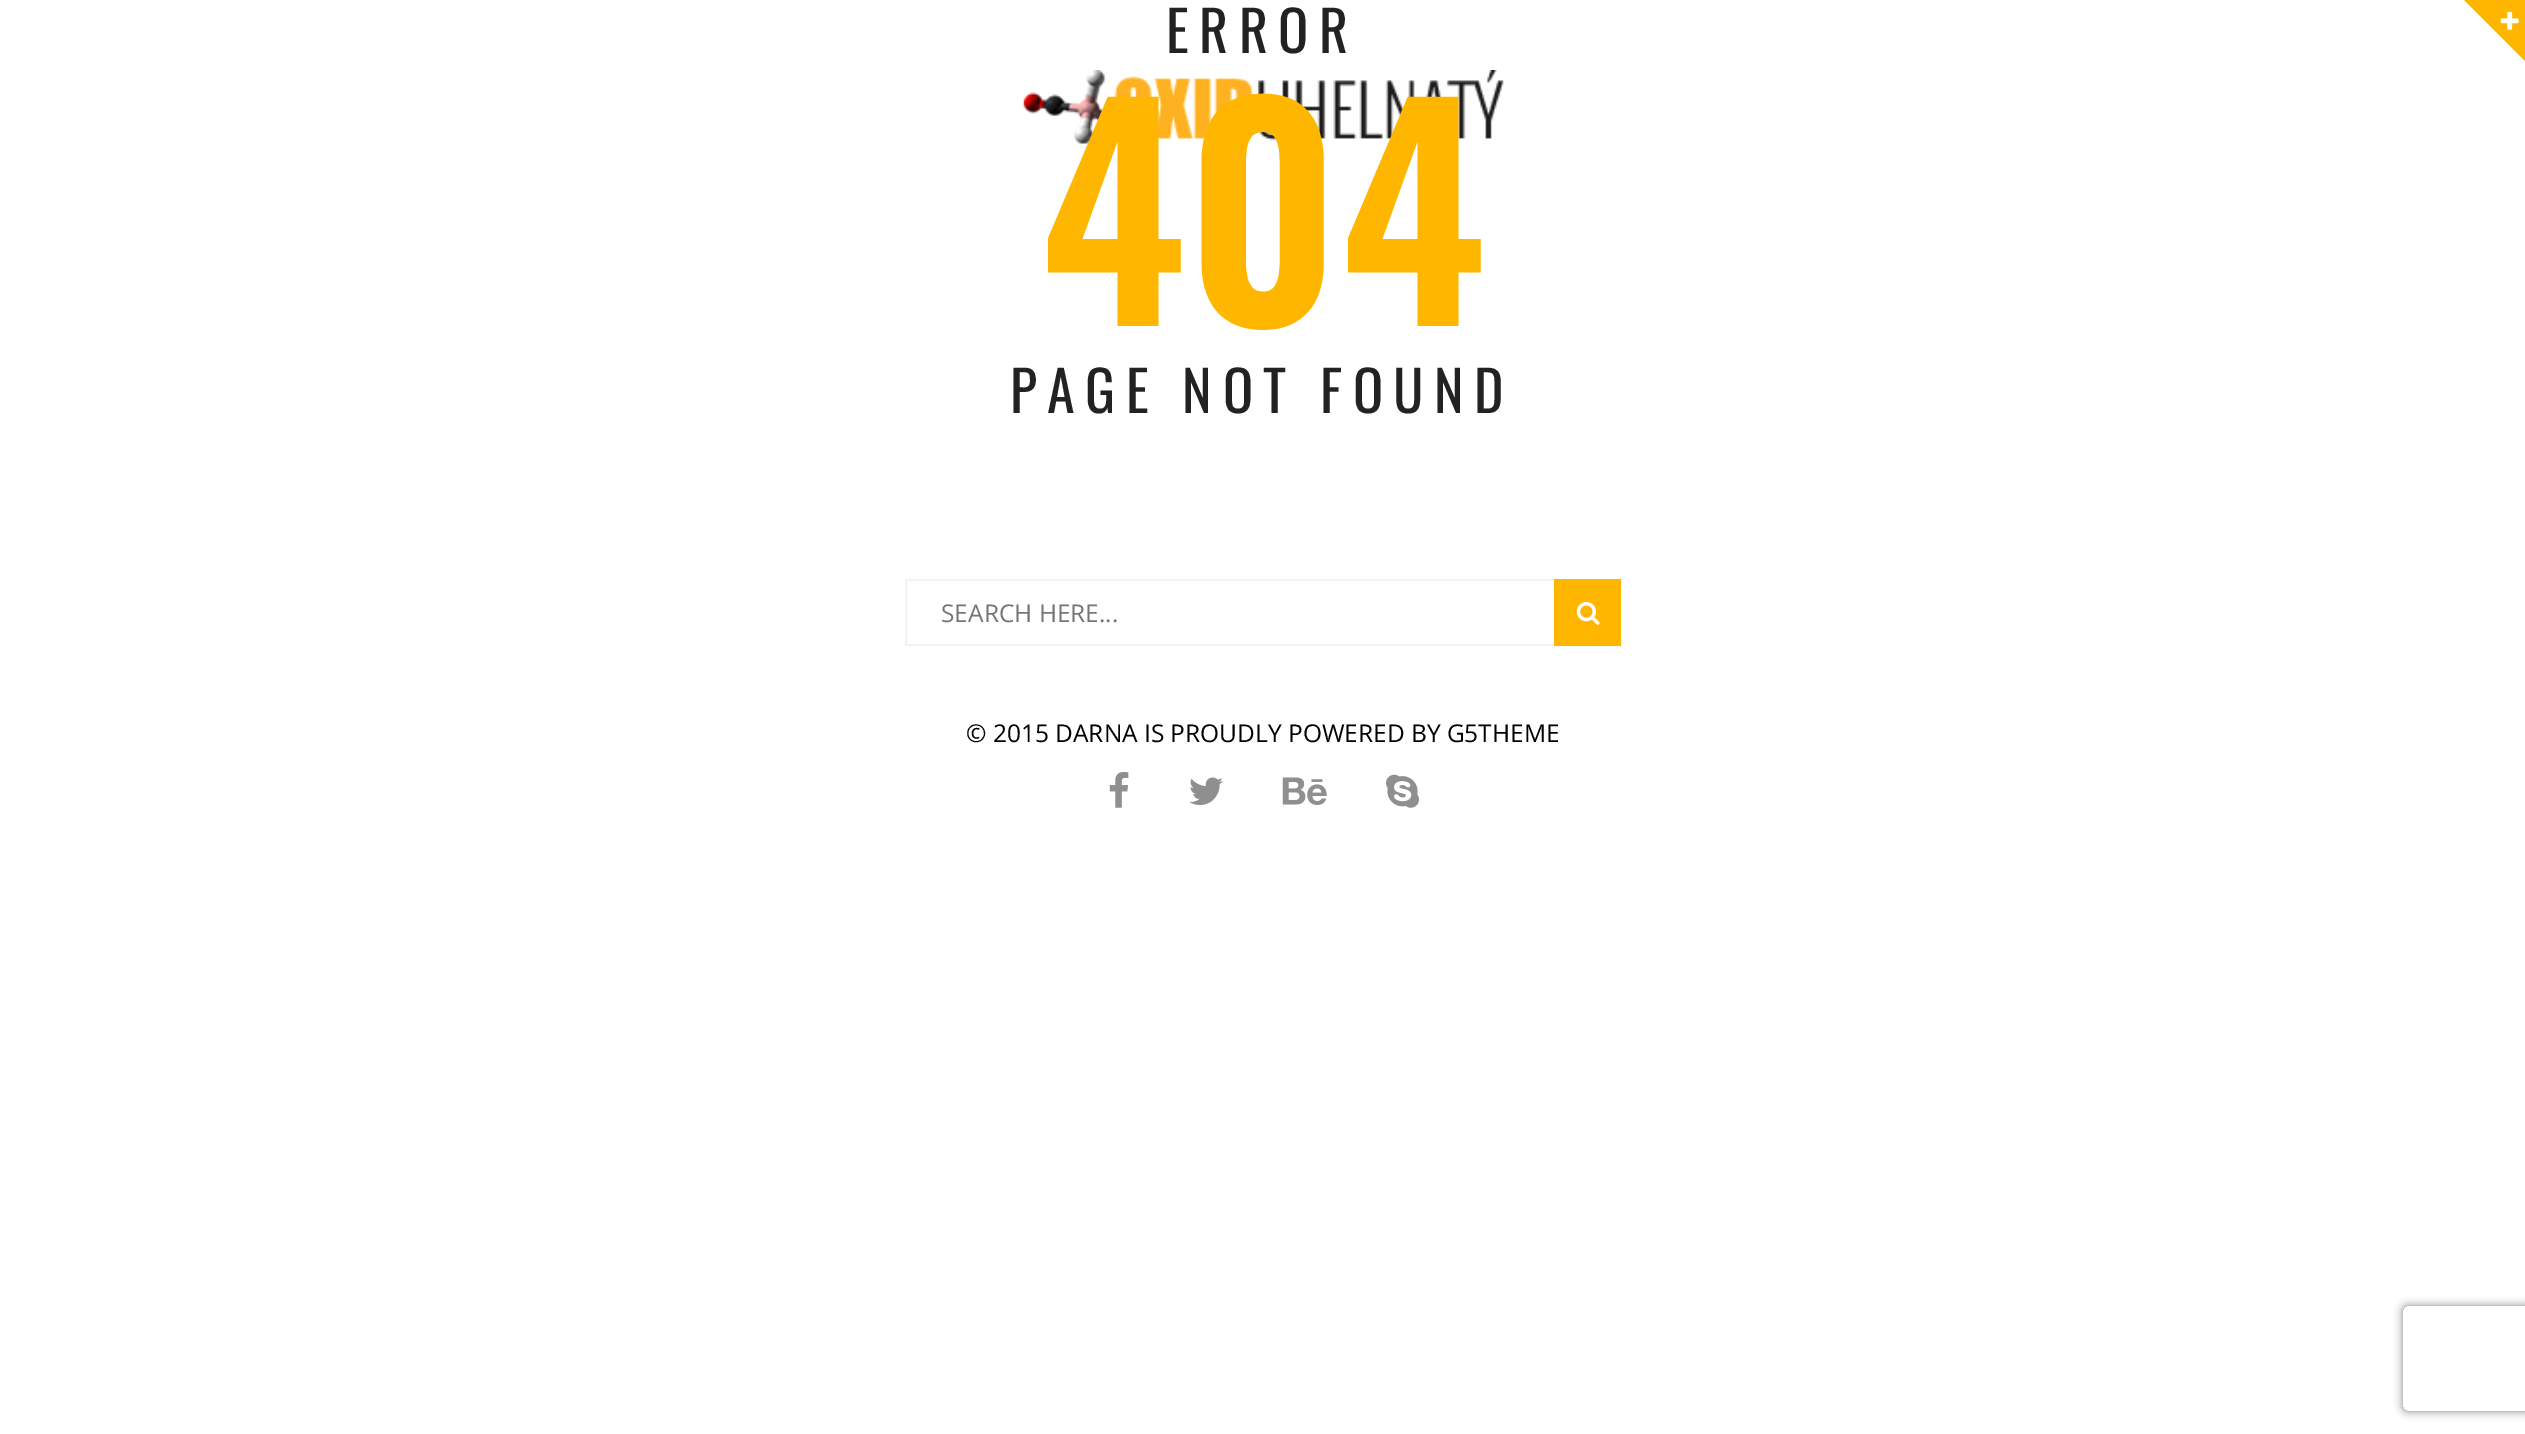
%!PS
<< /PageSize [2525 1434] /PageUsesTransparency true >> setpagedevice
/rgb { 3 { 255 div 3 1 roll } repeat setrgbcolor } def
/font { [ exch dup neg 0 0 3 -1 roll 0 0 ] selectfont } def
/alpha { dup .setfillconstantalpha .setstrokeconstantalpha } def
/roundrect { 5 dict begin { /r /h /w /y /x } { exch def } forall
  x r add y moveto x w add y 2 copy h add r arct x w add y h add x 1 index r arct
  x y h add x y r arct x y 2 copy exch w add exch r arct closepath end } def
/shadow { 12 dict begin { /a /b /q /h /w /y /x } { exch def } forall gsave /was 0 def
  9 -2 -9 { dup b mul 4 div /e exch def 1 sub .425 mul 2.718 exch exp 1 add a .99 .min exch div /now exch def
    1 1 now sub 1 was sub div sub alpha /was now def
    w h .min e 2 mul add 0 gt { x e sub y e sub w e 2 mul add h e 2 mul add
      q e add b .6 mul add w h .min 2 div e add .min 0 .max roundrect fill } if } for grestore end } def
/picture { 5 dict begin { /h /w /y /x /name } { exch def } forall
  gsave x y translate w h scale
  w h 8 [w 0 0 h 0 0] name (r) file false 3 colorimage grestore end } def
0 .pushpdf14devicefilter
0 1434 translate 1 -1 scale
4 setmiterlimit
255 255 255 rgb
0 0 2525 1434 rectfill
243 243 243 rgb
2 setlinewidth
906 580 714 65 rectstroke
255 182 0 rgb
1554 579 67 67 rectfill
(img/1.rgb) 1576 602 24 23 picture
(img/2.rgb) 1109 772 20 36 picture
(img/3.rgb) 1189 777 34 28 picture
(img/4.rgb) 1282 777 45 28 picture
(img/5.rgb) 1386 774 33 34 picture
(img/6.rgb) 1023 70 481 74 picture
2464 0 moveto 2525 0 lineto 2525 61 lineto closepath fill
(img/7.rgb) 2500 11 19 19 picture
gsave
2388 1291 moveto 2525 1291 lineto 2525 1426 lineto 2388 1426 lineto closepath 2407 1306 moveto 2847 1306 lineto 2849 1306 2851 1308 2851 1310 curveto 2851 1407 lineto 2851 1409 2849 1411 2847 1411 curveto 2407 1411 lineto 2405 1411 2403 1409 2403 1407 curveto 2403 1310 lineto 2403 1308 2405 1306 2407 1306 curveto closepath eoclip newpath
128 128 128 rgb
2403 1306 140 105 4 4.5 1 shadow
grestore
/Oswald-Regular 56 font
34 34 34 rgb
1166 53 moveto 10.5 0 (ERROR) ashow
/Oswald-SemiBold 284 font
255 182 0 rgb
1040 326 moveto (404) show
/Oswald-Regular 56 font
34 34 34 rgb
1010 413 moveto 10.5 0 (PAGE NOT FOUND) ashow
/OpenSans-Regular 24.5 font
117 117 117 rgb
941 622 moveto (SEARCH HERE...) show
0 0 0 rgb
966 742 moveto (© 2015 DARNA IS PROUDLY POWERED BY G5THEME) show
.poppdf14devicefilter showpage
